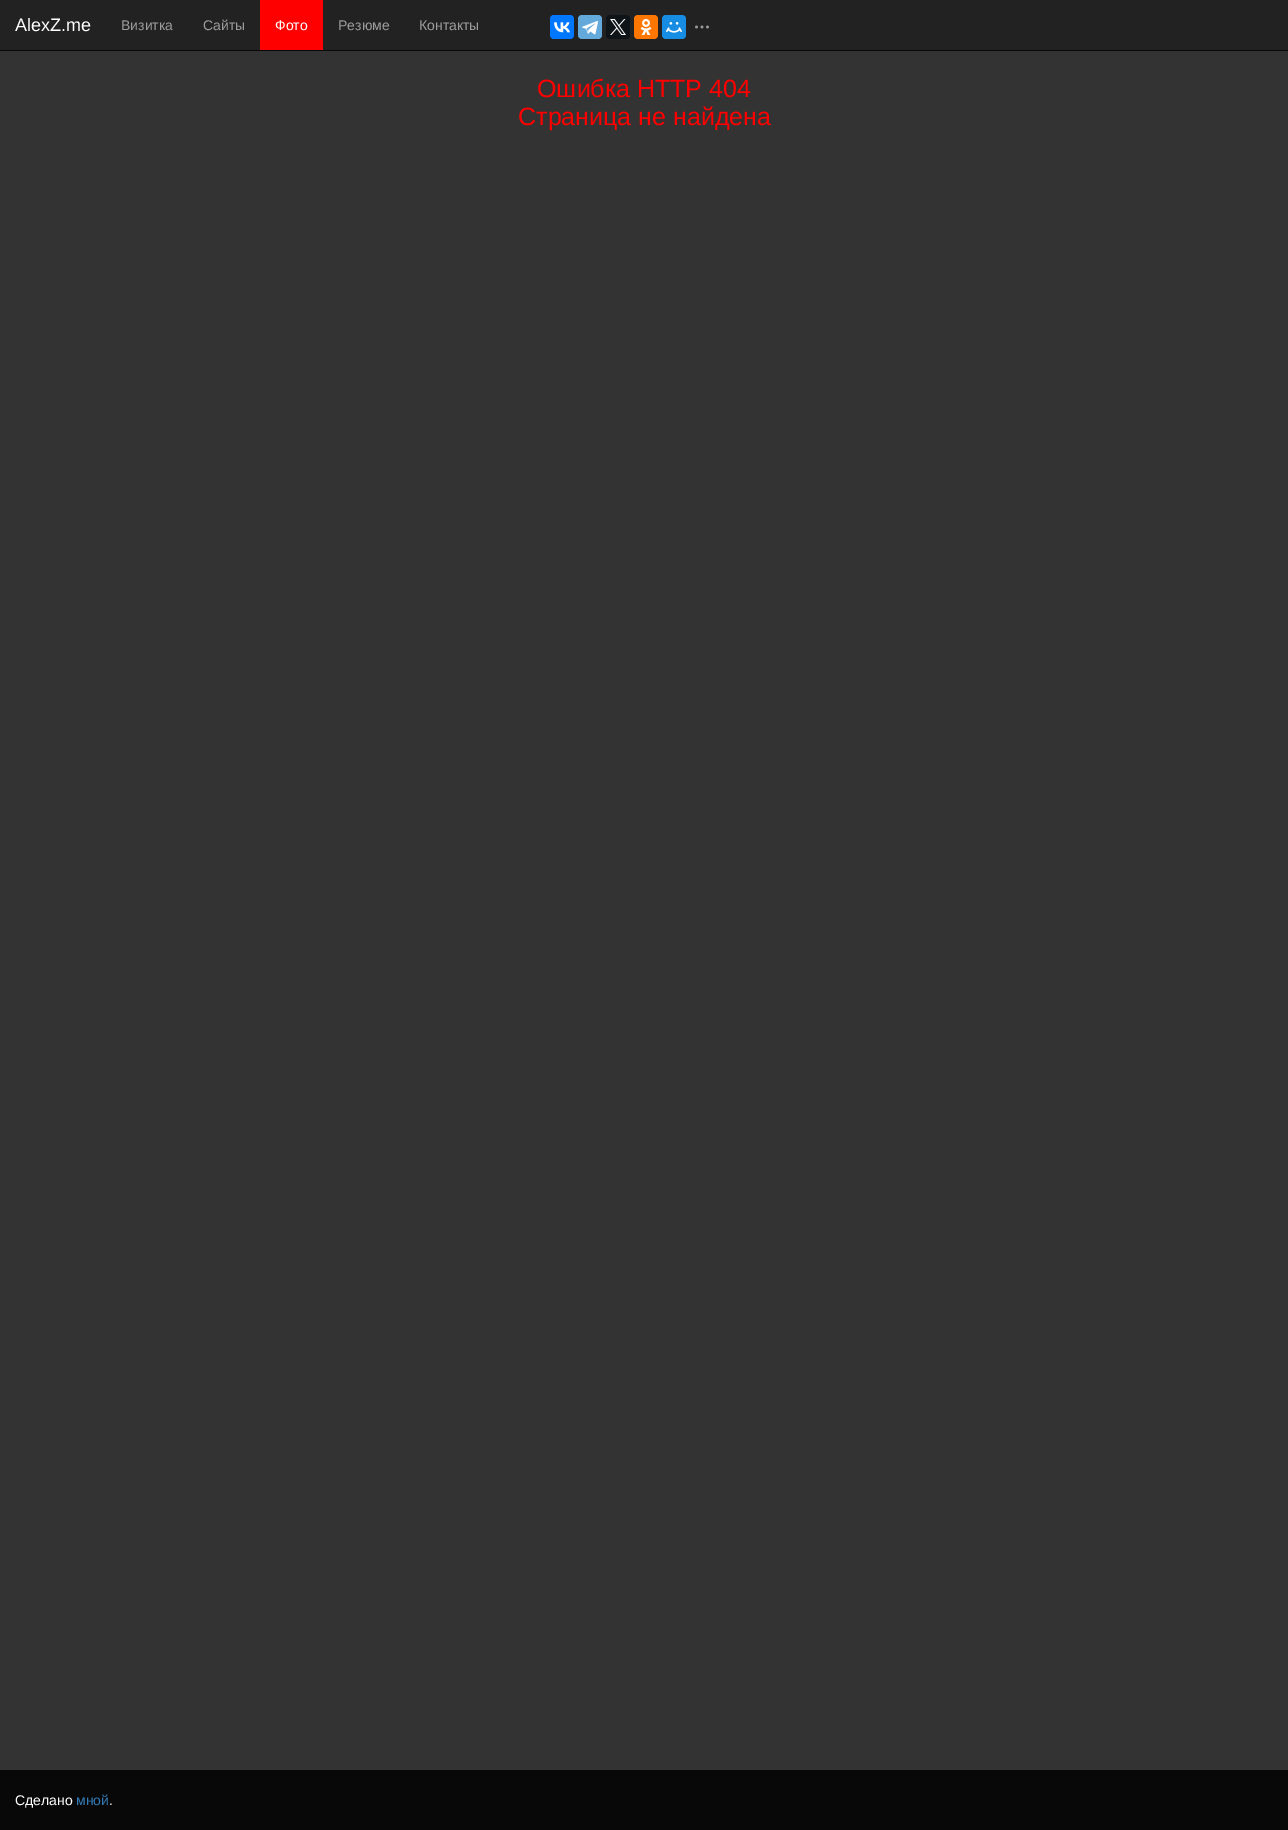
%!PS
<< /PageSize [1288 1830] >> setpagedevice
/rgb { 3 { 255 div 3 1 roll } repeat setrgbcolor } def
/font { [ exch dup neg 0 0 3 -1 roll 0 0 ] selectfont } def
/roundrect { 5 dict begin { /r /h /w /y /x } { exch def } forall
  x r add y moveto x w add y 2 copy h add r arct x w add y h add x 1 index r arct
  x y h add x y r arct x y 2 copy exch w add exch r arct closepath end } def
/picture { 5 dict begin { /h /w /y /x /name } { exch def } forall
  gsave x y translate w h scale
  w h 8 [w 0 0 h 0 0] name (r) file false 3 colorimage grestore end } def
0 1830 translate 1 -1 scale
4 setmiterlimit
51 51 51 rgb
0 0 1288 1830 rectfill
34 34 34 rgb
0 0 1288 50 rectfill
0 119 255 rgb
550 15 24 24 4 roundrect fill
(img/1.rgb) 554 22 16 11 picture
100 169 220 rgb
578 15 24 24 4 roundrect fill
(img/2.rgb) 582 21 16 14 picture
15 20 25 rgb
606 15 24 24 4 roundrect fill
(img/3.rgb) 610 19 16 16 picture
255 119 0 rgb
634 15 24 24 4 roundrect fill
(img/4.rgb) 640 19 12 16 picture
22 141 226 rgb
662 15 24 24 4 roundrect fill
(img/5.rgb) 666 22 16 11 picture
(img/6.rgb) 695 25 14 4 picture
[
  [0 50 1288 1 8 8 8]
  [260 0 63 50 255 0 0]
  [0 1770 1288 60 8 8 8]
] { aload pop rgb rectfill } forall
/LiberationSans-Regular 18 font
255 255 255 rgb
15 31 moveto (AlexZ.me) show
/LiberationSans-Regular 14 font
157 157 157 rgb
121 30 moveto (Визитка) show
203 30 moveto (Сайты) show
255 255 255 rgb
275 30 moveto (Фото) show
157 157 157 rgb
338 30 moveto (Резюме) show
419 30 moveto (Контакты) show
/LiberationSans-Regular 25 font
255 0 0 rgb
537 97 moveto (Ошибка HTTP 404) show
518 125 moveto (Страница не найдена) show
/LiberationSans-Regular 14 font
255 255 255 rgb
15 1805 moveto (Сделано) show
51 122 183 rgb
76 1805 moveto (мной) show
255 255 255 rgb
109 1805 moveto (.) show
showpage
